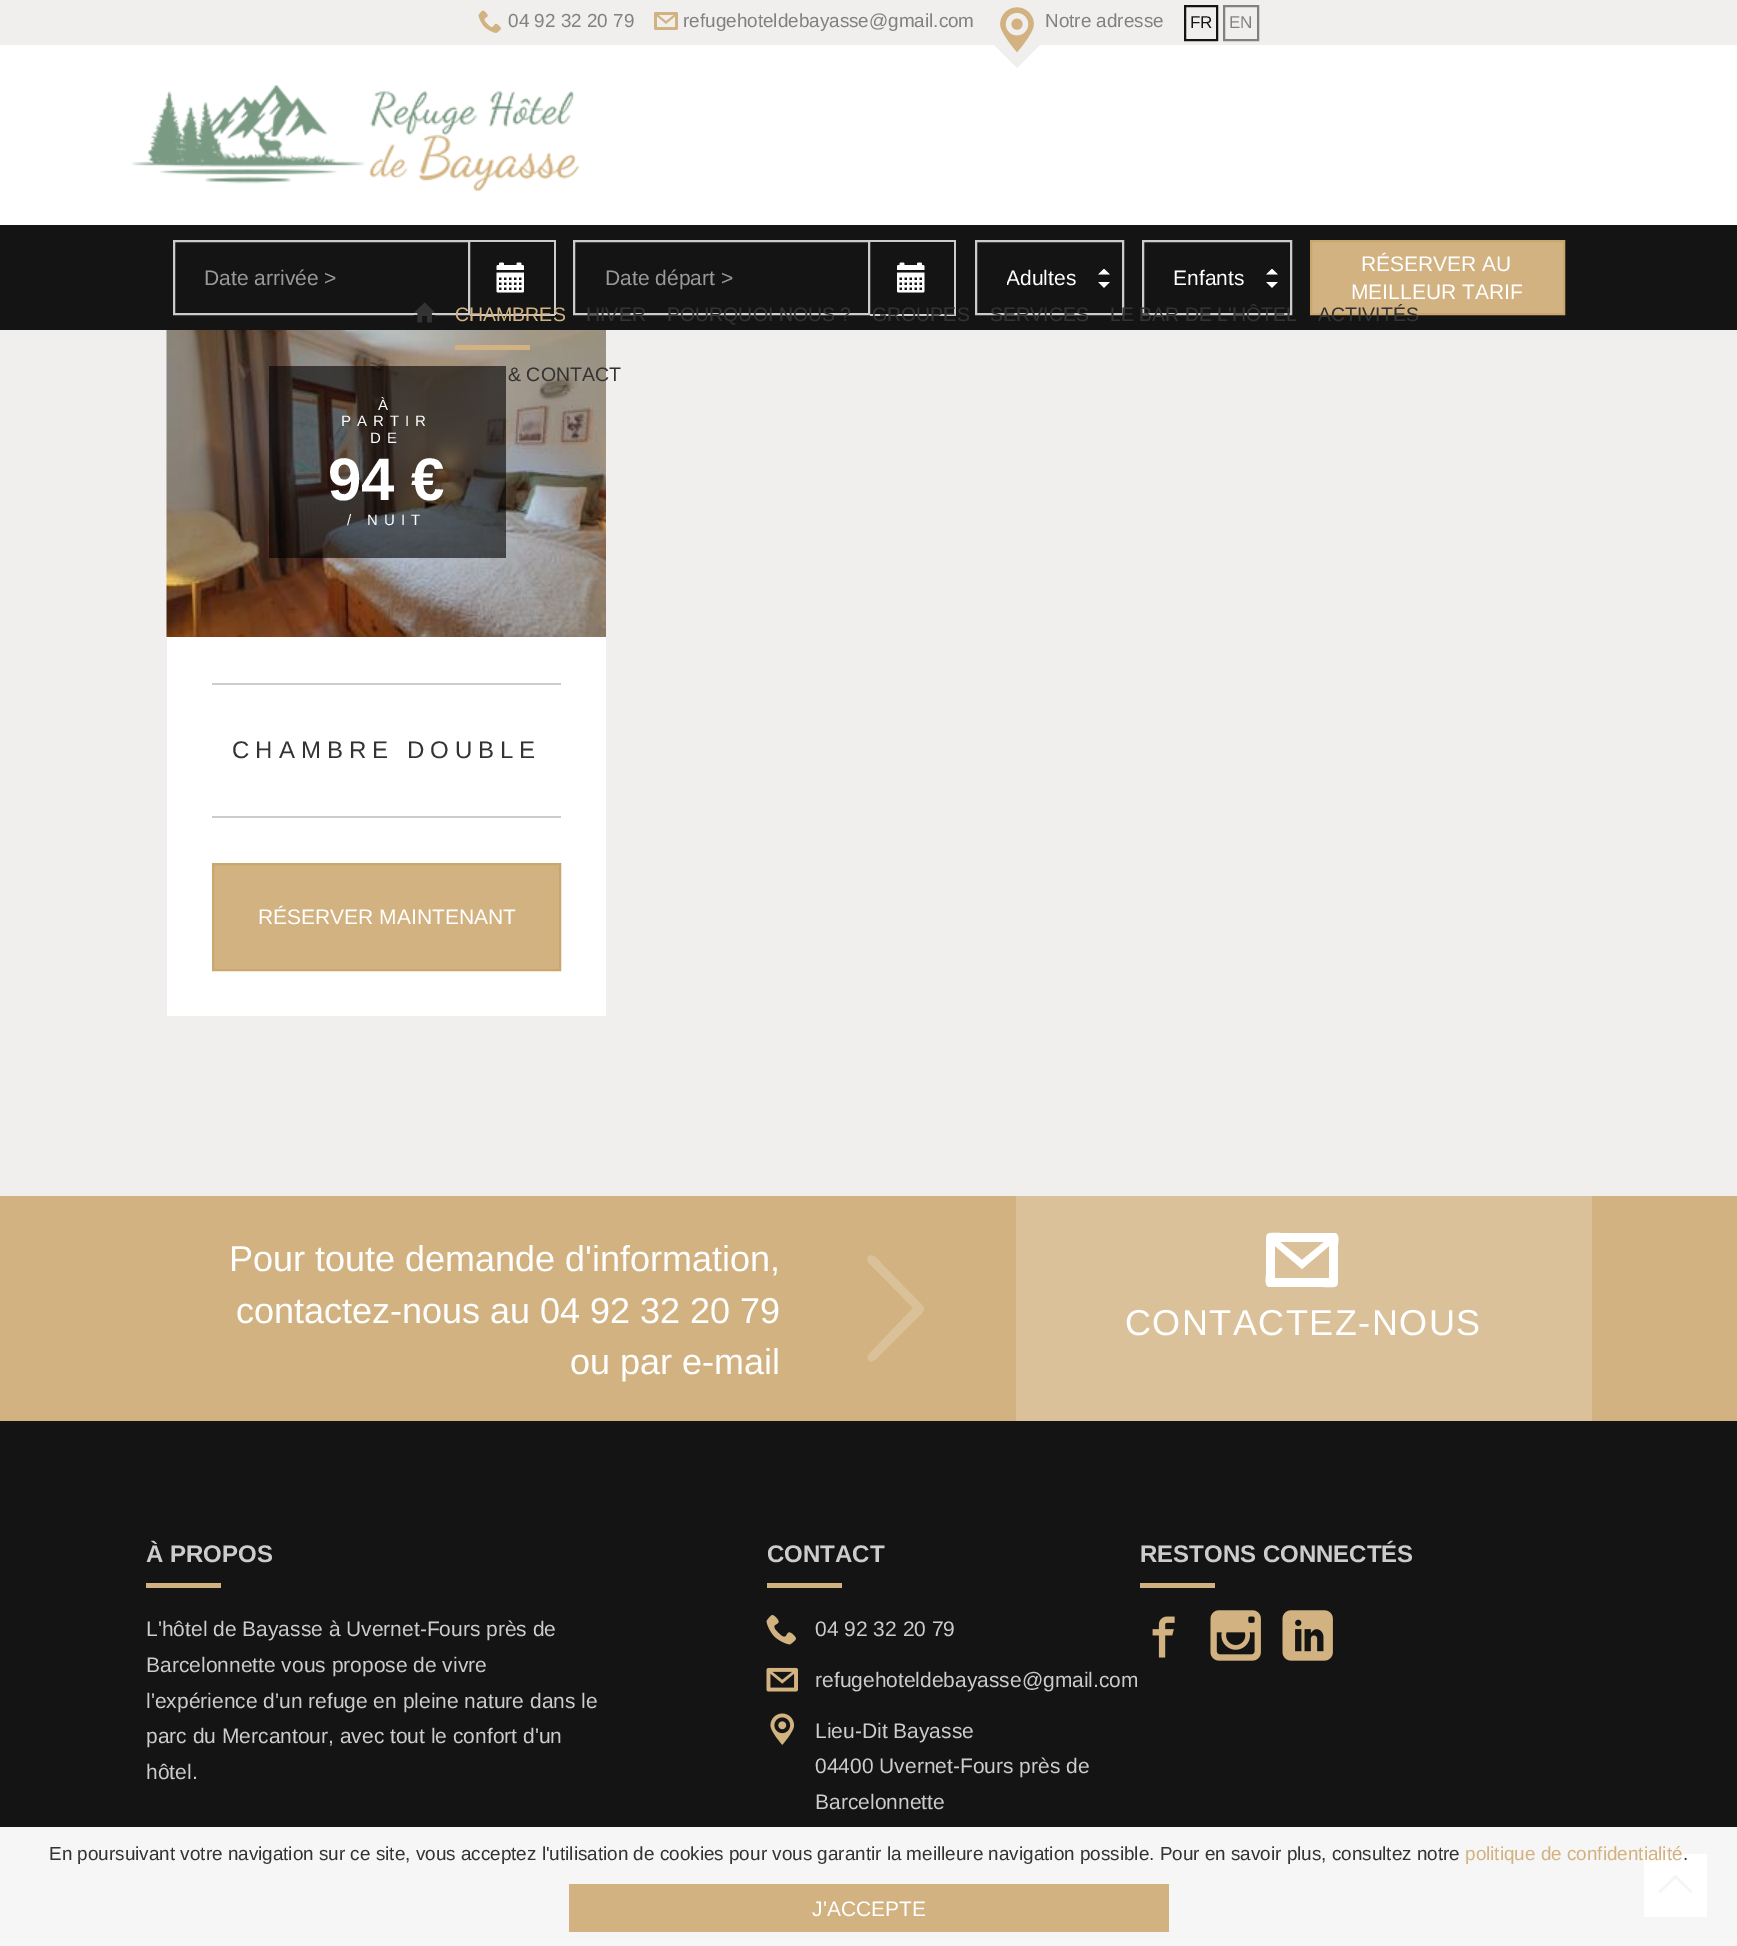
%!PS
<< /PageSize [1737 1946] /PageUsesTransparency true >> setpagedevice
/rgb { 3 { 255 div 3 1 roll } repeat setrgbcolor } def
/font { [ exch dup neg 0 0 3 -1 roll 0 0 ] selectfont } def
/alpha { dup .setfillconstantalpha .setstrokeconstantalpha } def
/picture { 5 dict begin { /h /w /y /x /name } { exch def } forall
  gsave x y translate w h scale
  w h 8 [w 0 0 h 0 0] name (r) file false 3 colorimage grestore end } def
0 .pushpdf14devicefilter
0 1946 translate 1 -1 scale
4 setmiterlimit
241 239 237 rgb
0 0 1737 1946 rectfill
255 255 255 rgb
0 45 1737 180 rectfill
(img/1.rgb) 478 10 23 23 picture
(img/2.rgb) 654 12 24 18 picture
241 239 237 rgb
994 45 moveto 1040 45 lineto 1017 68 lineto closepath fill
(img/3.rgb) 1000 7 34 46 picture
20 20 20 rgb
2 setlinewidth
1185 6 32 34 rectstroke
129 129 129 rgb
1224 6 34 34 rectstroke
(img/4.rgb) 132 85 448 106 picture
20 20 20 rgb
0 225 1737 105 rectfill
204 204 204 rgb
174 241 295 73 rectstroke
(img/5.rgb) 414 302 21 21 picture
(img/9.rgb) 166 330 440 307 picture
[
  [455 345 75 5 209 178 128]
  [470 240 85 2 204 204 204]
  [554 240 2 75 204 204 204]
  [470 314 85 2 204 204 204]
] { aload pop rgb rectfill } forall
(img/6.rgb) 496 262 28 31 picture
574 241 295 73 rectstroke
[
  [870 240 86 2 204 204 204]
  [954 240 2 75 204 204 204]
  [870 314 86 2 204 204 204]
] { aload pop rgb rectfill } forall
(img/7.rgb) 897 262 28 31 picture
(img/8.rgb) 1098 269 12 19 picture
976 241 147 73 rectstroke
(img/8.rgb) 1266 269 12 19 picture
1143 241 148 73 rectstroke
209 178 128 rgb
1311 241 moveto 1564 241 lineto 1564 314 lineto 1311 314 lineto closepath gsave fill grestore
202 167 109 rgb
stroke
[
  [167 637 439 379 255 255 255]
] { aload pop rgb rectfill } forall
0.6 alpha
[
  [269 366 237 192 0 0 0]
] { aload pop rgb rectfill } forall
1 alpha
[
  [212 683 349 2 204 204 204]
  [212 816 349 2 204 204 204]
] { aload pop rgb rectfill } forall
209 178 128 rgb
213 864 moveto 560 864 lineto 560 970 lineto 213 970 lineto closepath gsave fill grestore
202 167 109 rgb
stroke
209 178 128 rgb
0 1196 1737 225 rectfill
218 193 153 rgb
869 1354 moveto 867 1356 867 1359 869 1361 curveto 874 1364 881 1353 883 1352 curveto 915 1320 lineto 917 1318 927 1311 923 1306 curveto 883 1265 lineto 881 1263 873 1251 868 1257 curveto 867 1260 lineto 868 1262 lineto 913 1308 lineto closepath fill
1016 1196 576 225 rectfill
255 255 255 rgb
1334 1233 moveto 1281 1233 lineto 1266 1233 1266 1231 1266 1245 curveto 1266 1275 lineto 1266 1278 1264 1287 1270 1287 curveto 1323 1287 lineto 1338 1287 1338 1289 1338 1275 curveto 1338 1245 lineto 1338 1242 1340 1233 1334 1233 curveto closepath 1324 1242 moveto 1302 1260 lineto 1280 1242 lineto closepath 1329 1278 moveto 1275 1278 lineto 1275 1246 lineto 1302 1269 lineto 1329 1246 lineto closepath fill
[
  [0 1421 1737 406 20 20 20]
  [0 1827 1737 114 246 246 246]
  [146 1583 75 5 209 178 128]
  [767 1583 75 5 209 178 128]
] { aload pop rgb rectfill } forall
(img/10.rgb) 766 1615 30 30 picture
(img/11.rgb) 766 1667 32 25 picture
(img/12.rgb) 770 1713 25 32 picture
1140 1583 75 5 rectfill
(img/13.rgb) 1152 1616 23 42 picture
(img/14.rgb) 1210 1610 51 51 picture
(img/15.rgb) 1282 1610 51 51 picture
[
  [0 1941 1737 5 247 247 247]
  [569 1884 600 48 209 178 128]
  [1644 1854 63 63 255 255 255]
] { aload pop rgb rectfill } forall
(img/16.rgb) 1658 1874 35 20 picture
/LiberationSans-Regular 18.9 font
129 129 129 rgb
[
  [(04 92 32 20 79) 508 27]
  [(refugehoteldebayasse@gmail.com) 683 27]
  [(Notre adresse) 1045 27]
] { aload pop moveto show } forall
/LiberationSans-Regular 17 font
20 20 20 rgb
1190 28 moveto (FR) show
129 129 129 rgb
1229 28 moveto (EN) show
/LiberationSans-Regular 19.5 font
209 178 128 rgb
455 321 moveto (CHAMBRES) show
51 51 51 rgb
[
  [(HIVER) 586 321]
  [(POURQUOI NOUS ?) 667 321]
  [(GROUPES) 872 321]
  [(SERVICES) 990 321]
  [(LE BAR DE L'HÔTEL) 1110 321]
  [(ACTIVITÉS) 1318 321]
  [(& CONTACT) 508 381]
] { aload pop moveto show } forall
/LiberationSans-Regular 21 font
153 153 153 rgb
204 285 moveto (Date arrivée >) show
605 285 moveto (Date départ >) show
gsave
1007 263 70 30 rectclip
255 255 255 rgb
1006 285 moveto (Adultes) show
grestore
255 255 255 rgb
[
  [(Enfants) 1173 285]
  [(RÉSERVER AU) 1361 271]
  [(MEILLEUR TARIF) 1351 299]
] { aload pop moveto show } forall
/LiberationSans-Regular 15 font
378 410 moveto 6 0 (À) ashow
341 426 moveto 6 0 (PARTIR) ashow
370 443 moveto 6 0 (DE) ashow
/LiberationSans-Bold 60 font
328 500 moveto (94 €) show
/LiberationSans-Regular 15 font
347 525 moveto 6 0 (/ NUIT) ashow
/LiberationSans-Regular 24 font
51 51 51 rgb
232 758 moveto 6 0 (CHAMBRE DOUBLE) ashow
/LiberationSans-Regular 21 font
255 255 255 rgb
258 924 moveto (RÉSERVER MAINTENANT) show
/LiberationSans-Regular 36 font
[
  [(Pour toute demande d'information,) 229 1271]
  [(contactez-nous au 04 92 32 20 79) 236 1323]
  [(ou par e-mail) 570 1374]
] { aload pop moveto show } forall
1125 1335 moveto 1.5 0 (CONTACTEZ-NOUS) ashow
/LiberationSans-Bold 24 font
204 204 204 rgb
146 1562 moveto (À PROPOS) show
/LiberationSans-Regular 21 font
[
  [(L'hôtel de Bayasse à Uvernet-Fours près de) 146 1636]
  [(Barcelonnette vous propose de vivre) 146 1672]
  [(l'expérience d'un refuge en pleine nature dans le) 146 1708]
  [(parc du Mercantour, avec tout le confort d'un) 146 1743]
  [(hôtel.) 146 1779]
] { aload pop moveto show } forall
/LiberationSans-Bold 24 font
767 1562 moveto (CONTACT) show
/LiberationSans-Regular 21 font
[
  [(04 92 32 20 79) 815 1636]
  [(refugehoteldebayasse@gmail.com) 815 1687]
  [(Lieu-Dit Bayasse) 815 1738]
  [(04400 Uvernet-Fours près de) 815 1773]
  [(Barcelonnette) 815 1809]
] { aload pop moveto show } forall
/LiberationSans-Bold 24 font
1140 1562 moveto (RESTONS CONNECTÉS) show
/LiberationSans-Regular 18.9 font
51 51 51 rgb
49 1860 moveto (En poursuivant votre navigation sur ce site, vous acceptez l'utilisation de cookies pour vous garantir la meilleure navigation possible. Pour en savoir plus, consultez notre) show
209 178 128 rgb
1465 1860 moveto (politique de confidentialité) show
51 51 51 rgb
1683 1860 moveto (.) show
/LiberationSans-Regular 21 font
255 255 255 rgb
812 1916 moveto (J'ACCEPTE) show
.poppdf14devicefilter showpage
